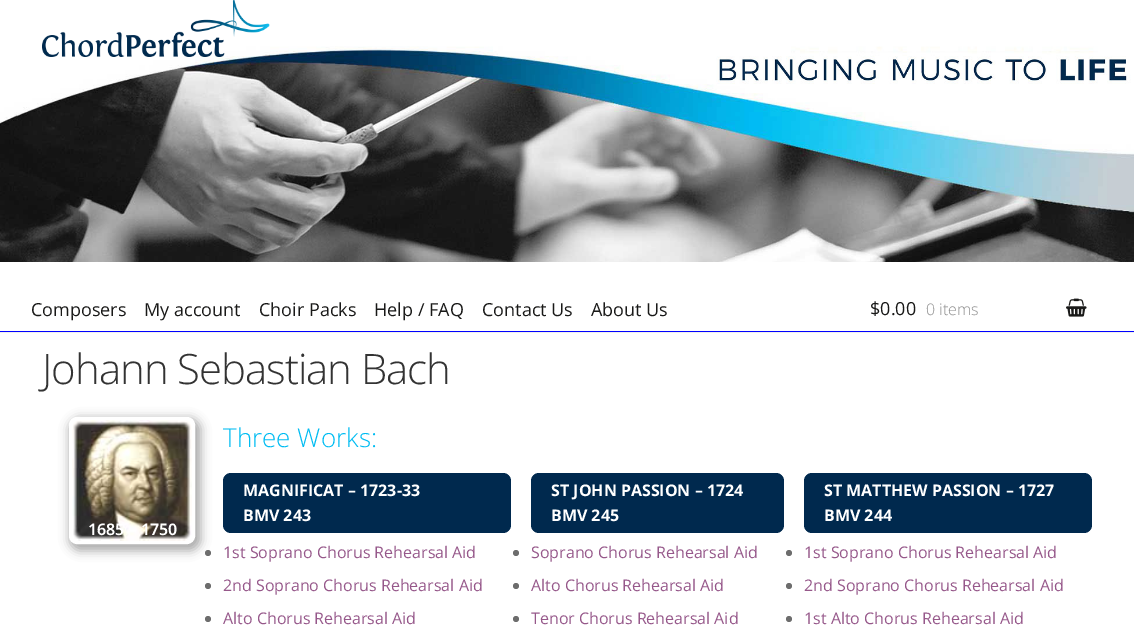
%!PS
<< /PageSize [1134 632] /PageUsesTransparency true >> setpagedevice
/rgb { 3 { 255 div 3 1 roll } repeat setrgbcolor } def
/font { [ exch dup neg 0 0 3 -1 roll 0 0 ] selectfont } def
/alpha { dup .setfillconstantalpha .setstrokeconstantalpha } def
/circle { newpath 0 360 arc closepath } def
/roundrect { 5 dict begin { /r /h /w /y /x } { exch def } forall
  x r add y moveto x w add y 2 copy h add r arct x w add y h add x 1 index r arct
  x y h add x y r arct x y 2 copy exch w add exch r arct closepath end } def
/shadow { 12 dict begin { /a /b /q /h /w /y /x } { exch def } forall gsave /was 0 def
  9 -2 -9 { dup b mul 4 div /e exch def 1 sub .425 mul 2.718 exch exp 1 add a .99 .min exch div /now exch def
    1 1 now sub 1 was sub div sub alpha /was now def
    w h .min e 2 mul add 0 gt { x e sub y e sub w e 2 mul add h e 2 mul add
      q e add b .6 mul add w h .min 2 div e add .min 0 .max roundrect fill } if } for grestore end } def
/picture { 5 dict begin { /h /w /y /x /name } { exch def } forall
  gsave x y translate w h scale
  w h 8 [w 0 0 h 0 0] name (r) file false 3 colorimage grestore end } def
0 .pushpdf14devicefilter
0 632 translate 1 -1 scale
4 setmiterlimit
255 255 255 rgb
0 0 1134 632 rectfill
(img/1.rgb) 0 46 1134 216 picture
240 240 240 rgb
0 332 1134 1 rectfill
(img/2.rgb) 42 0 228 57 picture
0 0 255 rgb
0 331 1134 1 rectfill
(img/3.rgb) 1066 298 21 19 picture
109 109 109 rgb
208 553 3 circle fill
170 170 170 rgb
69 418 132 133 11 5 1 shadow
255 255 255 rgb
3 setlinewidth
70.5 418.5 123 124 6.5 roundrect stroke
(img/4.rgb) 72 420 120 121 picture
0 41 78 rgb
223 473 288 60 8 roundrect fill
109 109 109 rgb
208 586 3 circle fill
208 619 3 circle fill
0 41 78 rgb
531 473 253 60 8 roundrect fill
109 109 109 rgb
516 553 3 circle fill
516 586 3 circle fill
516 619 3 circle fill
0 41 78 rgb
804 473 288 60 8 roundrect fill
109 109 109 rgb
789 553 3 circle fill
789 586 3 circle fill
789 619 3 circle fill
/OpenSans-Regular 18 font
25 25 24 rgb
[
  [(Composers) 31 316]
  [(My account) 144 316]
  [(Choir Packs) 259 316]
  [(Help / FAQ) 374 316]
  [(Contact Us) 482 316]
  [(About Us) 591 316]
  [($0.00) 870 315]
] { aload pop moveto show } forall
/OpenSans-Light 16 font
140 140 140 rgb
926 315 moveto (0 items) show
/OpenSans-Light 41.9 font
51 51 51 rgb
42 384 moveto -1 0 (Johann Sebastian Bach) ashow
/OpenSans-Light 26 font
0 188 242 rgb
223 447 moveto (Three Works:) show
/OpenSans-SemiBold 16 font
255 255 255 rgb
88 535 moveto (1685 – 1750) show
/OpenSans-Bold 16 font
243 496 moveto (MAGNIFICAT – 1723-33) show
243 521 moveto (BMV 243) show
/OpenSans-Regular 16 font
150 88 138 rgb
[
  [(1st Soprano Chorus Rehearsal Aid) 223 558]
  [(2nd Soprano Chorus Rehearsal Aid) 223 591]
  [(Alto Chorus Rehearsal Aid) 223 624]
] { aload pop moveto show } forall
/OpenSans-Bold 16 font
255 255 255 rgb
551 496 moveto (ST JOHN PASSION – 1724) show
551 521 moveto (BMV 245) show
/OpenSans-Regular 16 font
150 88 138 rgb
[
  [(Soprano Chorus Rehearsal Aid) 531 558]
  [(Alto Chorus Rehearsal Aid) 531 591]
  [(Tenor Chorus Rehearsal Aid) 531 624]
] { aload pop moveto show } forall
/OpenSans-Bold 16 font
255 255 255 rgb
824 496 moveto (ST MATTHEW PASSION – 1727) show
824 521 moveto (BMV 244) show
/OpenSans-Regular 16 font
150 88 138 rgb
[
  [(1st Soprano Chorus Rehearsal Aid) 804 558]
  [(2nd Soprano Chorus Rehearsal Aid) 804 591]
  [(1st Alto Chorus Rehearsal Aid) 804 624]
] { aload pop moveto show } forall
.poppdf14devicefilter showpage
